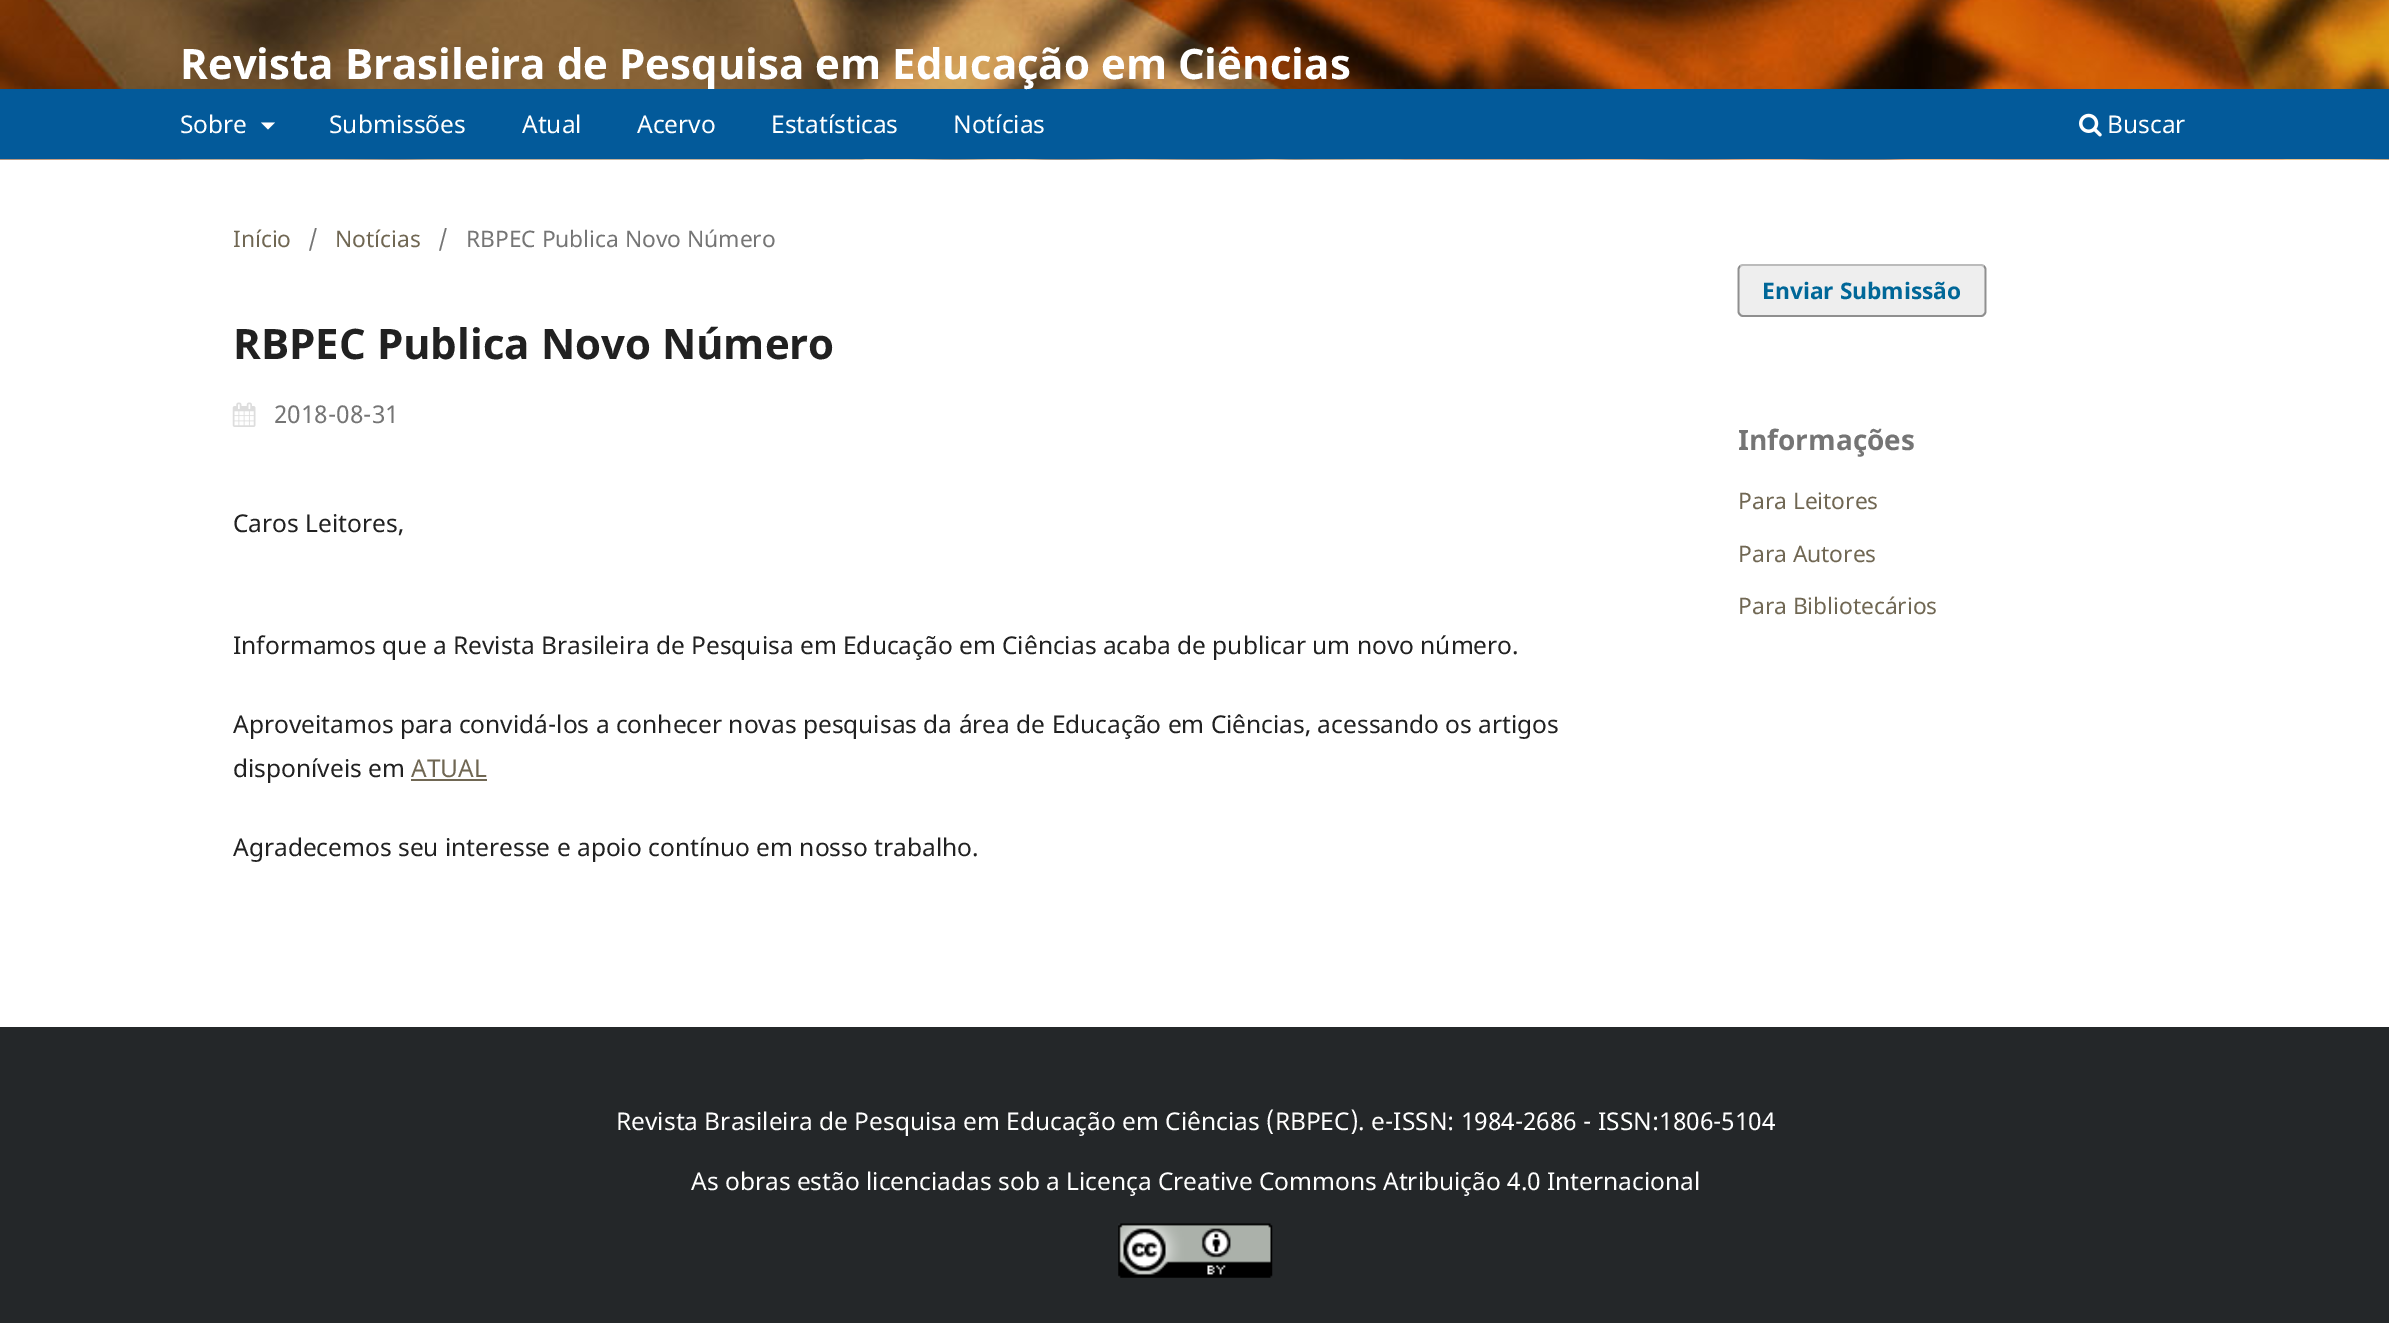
%!PS
<< /PageSize [2389 1323] /PageUsesTransparency true >> setpagedevice
/rgb { 3 { 255 div 3 1 roll } repeat setrgbcolor } def
/font { [ exch dup neg 0 0 3 -1 roll 0 0 ] selectfont } def
/alpha { dup .setfillconstantalpha .setstrokeconstantalpha } def
/roundrect { 5 dict begin { /r /h /w /y /x } { exch def } forall
  x r add y moveto x w add y 2 copy h add r arct x w add y h add x 1 index r arct
  x y h add x y r arct x y 2 copy exch w add exch r arct closepath end } def
/picture { 5 dict begin { /h /w /y /x /name } { exch def } forall
  gsave x y translate w h scale
  w h 8 [w 0 0 h 0 0] name (r) file false 3 colorimage grestore end } def
0 .pushpdf14devicefilter
0 1323 translate 1 -1 scale
4 setmiterlimit
255 255 255 rgb
0 0 2389 1323 rectfill
(img/1.rgb) 0 0 2389 160 picture
3 90 154 rgb
0 89 2389 70 rectfill
255 255 255 rgb
261 122.5 moveto 275 122.5 lineto 268 129.5 lineto closepath fill
(img/2.rgb) 2079 113 23 24 picture
(img/3.rgb) 232 402 24 25 picture
112 103 83 rgb
411 779 76 2 rectfill
238 238 238 rgb
1738 264 248 53 5 roundrect fill
187 187 187 rgb
1.8 setlinewidth
1740 266.5 moveto 1740.5 265.5 1742 265 1743 265 curveto 1981 265 lineto 1982 265 1983.5 265.5 1984 266.5 curveto stroke
0.4 alpha
0 0 0 rgb
1984 266.5 moveto 1985 267 1985.5 268.5 1985.5 269.5 curveto 1985.5 311.5 lineto 1985.5 312.5 1985 314 1984 314.5 curveto 1983.5 315.5 1982 316 1981 316 curveto 1743 316 lineto 1742 316 1740.5 315.5 1740 314.5 curveto 1739 314 1738.5 312.5 1738.5 311.5 curveto 1738.5 269.5 lineto 1738.5 268.5 1739 267 1740 266.5 curveto stroke
1 alpha
36 39 41 rgb
0 1027 2389 296 rectfill
(img/4.rgb) 1118 1223 155 55 picture
/NotoSans-Bold 42 font
255 255 255 rgb
180 79 moveto (Revista Brasileira de Pesquisa em Educação em Ciências) show
/NotoSans-Regular 24.5 font
[
  [(Sobre) 180 133]
  [(Submissões) 329 133]
  [(Atual) 522 133]
  [(Acervo) 637 133]
  [(Estatísticas) 771 133]
  [(Notícias) 953 133]
  [(Buscar) 2107 133]
] { aload pop moveto show } forall
/NotoSans-Regular 22.75 font
112 103 83 rgb
233 247 moveto (Início) show
117 117 117 rgb
308 247 moveto (/) show
112 103 83 rgb
335 247 moveto (Notícias) show
117 117 117 rgb
438 247 moveto (/) show
466 247 moveto (RBPEC Publica Novo Número) show
/NotoSans-Bold 42 font
33 33 33 rgb
233 359 moveto (RBPEC Publica Novo Número) show
/NotoSans-Regular 24.5 font
117 117 117 rgb
274 423 moveto (2018-08-31) show
33 33 33 rgb
[
  [(Caros Leitores,) 233 532]
  [(Informamos que a Revista Brasileira de Pesquisa em Educação em Ciências acaba de publicar um novo número.) 233 654]
  [(Aproveitamos para convidá-los a conhecer novas pesquisas da área de Educação em Ciências, acessando os artigos) 233 733]
  [(disponíveis em) 233 777]
] { aload pop moveto show } forall
112 103 83 rgb
411 777 moveto (ATUAL) show
33 33 33 rgb
233 856 moveto (Agradecemos seu interesse e apoio contínuo em nosso trabalho.) show
/NotoSans-Bold 22.75 font
0 103 152 rgb
1762 299 moveto (Enviar Submissão) show
/NotoSans-Bold 28 font
117 117 117 rgb
1738 450 moveto (Informações) show
/NotoSans-Regular 22.75 font
112 103 83 rgb
[
  [(Para Leitores) 1738 509]
  [(Para Autores) 1738 562]
  [(Para Bibliotecários) 1738 614]
] { aload pop moveto show } forall
/NotoSans-Regular 24.5 font
255 255 255 rgb
616 1130 moveto (Revista Brasileira de Pesquisa em Educação em Ciências \(RBPEC\). e-ISSN: 1984-2686 - ISSN:1806-5104) show
691 1190 moveto (As obras estão licenciadas sob a Licença Creative Commons Atribuição 4.0 Internacional) show
.poppdf14devicefilter showpage
